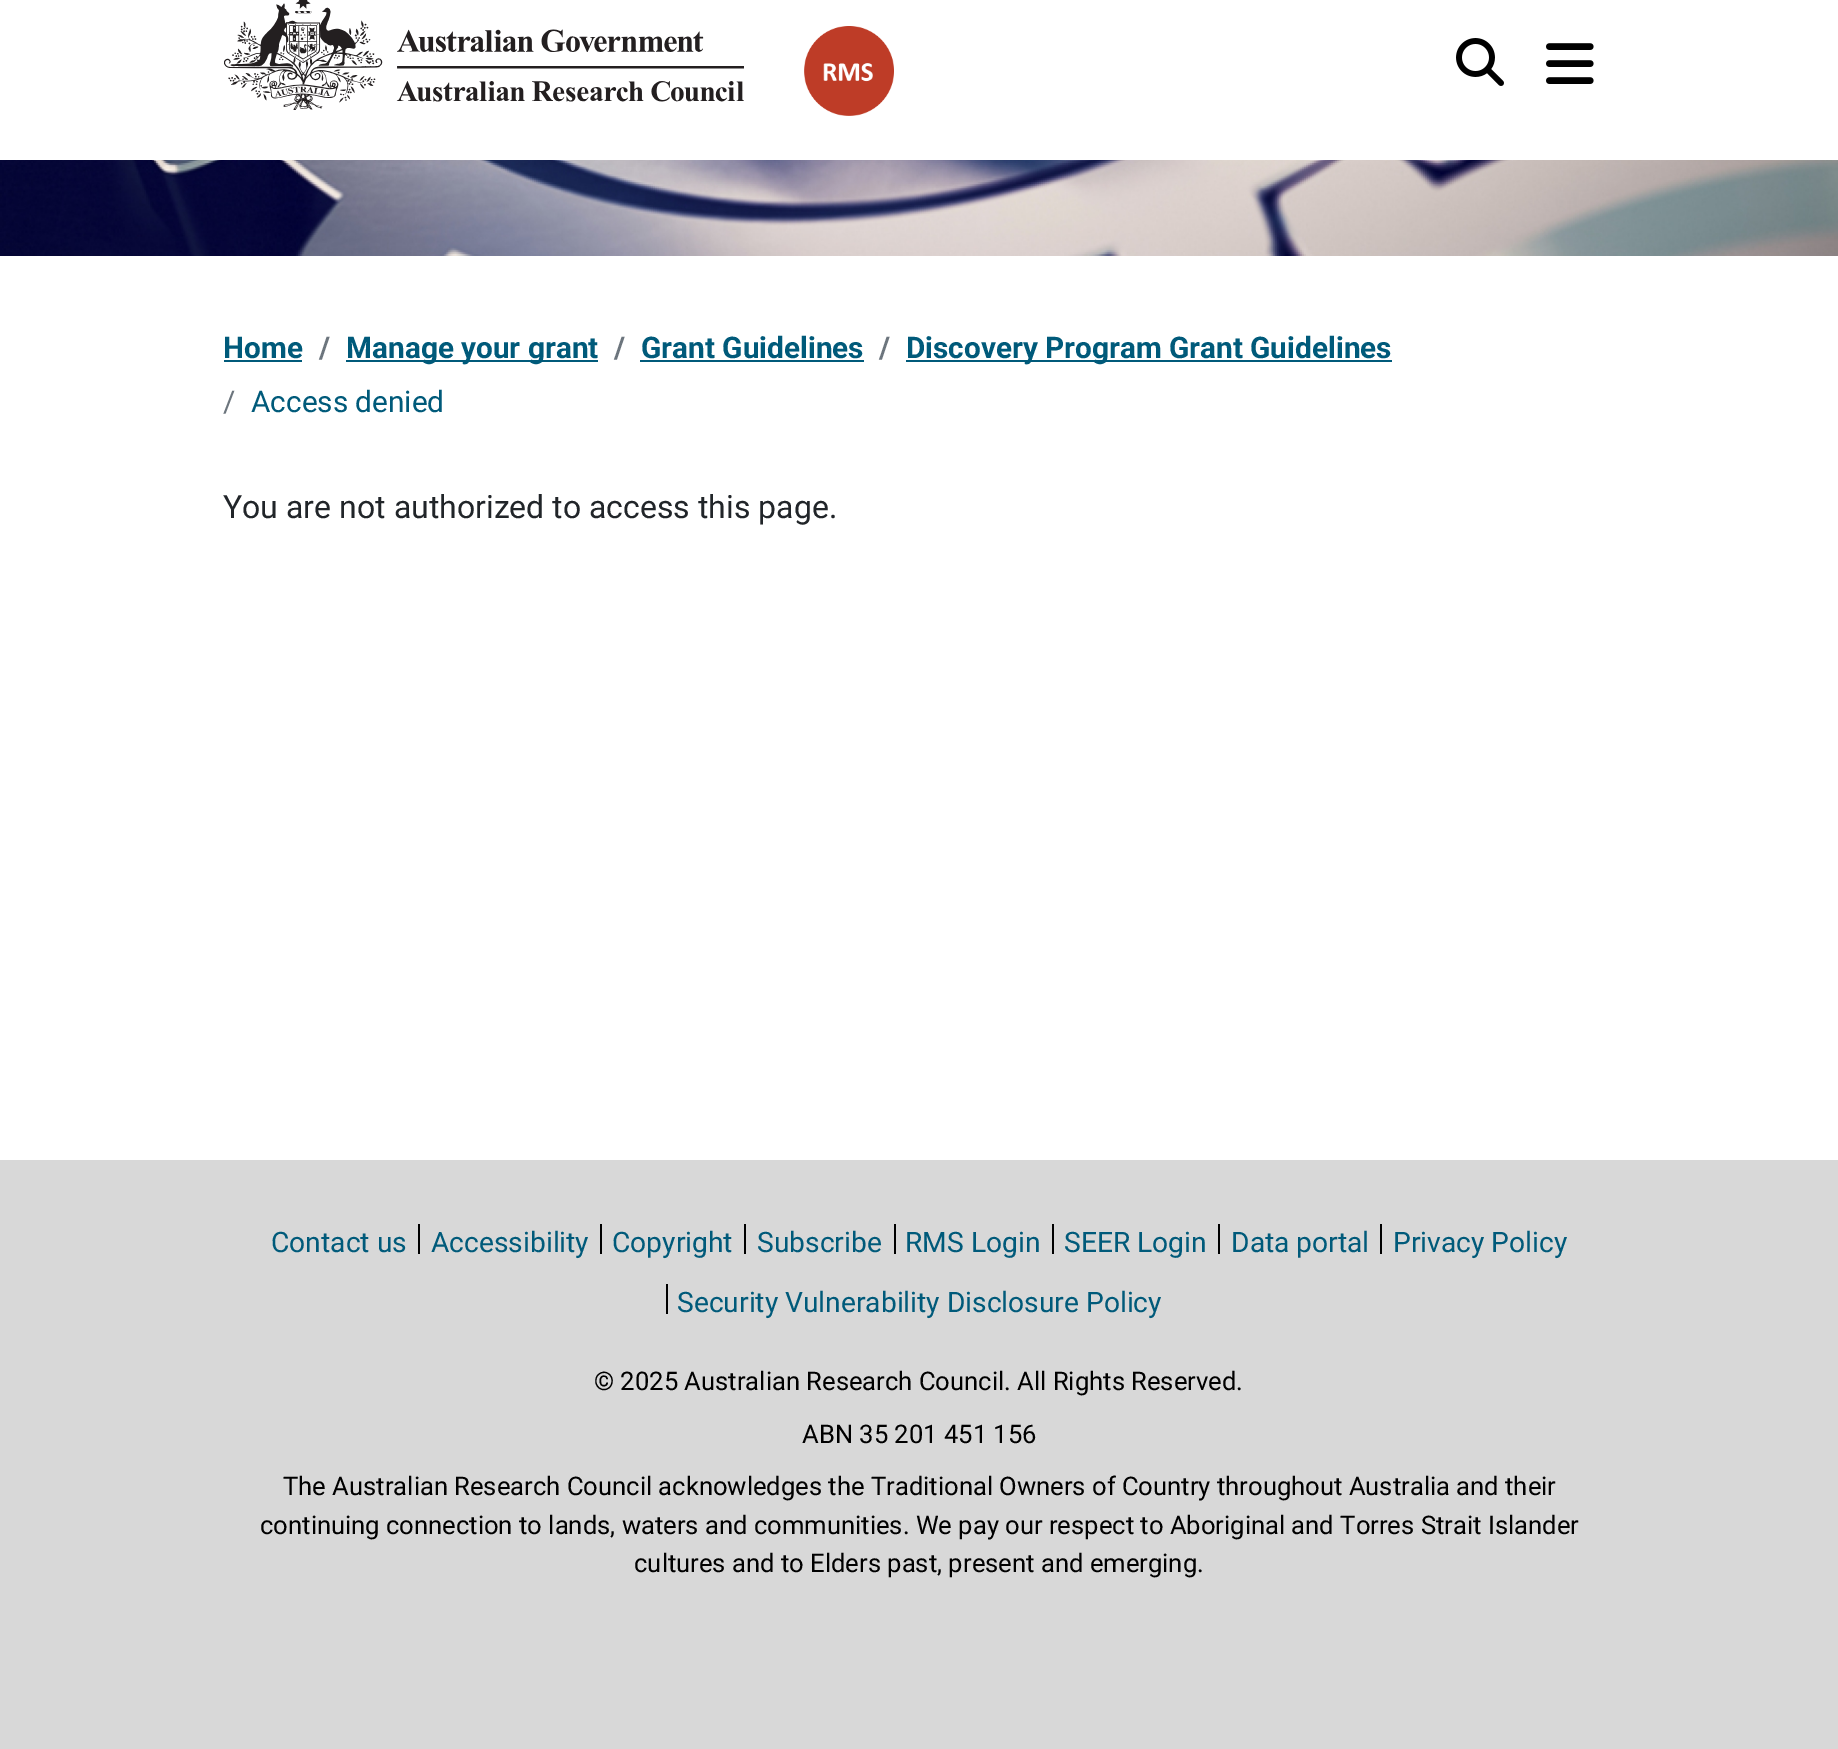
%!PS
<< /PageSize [1838 1749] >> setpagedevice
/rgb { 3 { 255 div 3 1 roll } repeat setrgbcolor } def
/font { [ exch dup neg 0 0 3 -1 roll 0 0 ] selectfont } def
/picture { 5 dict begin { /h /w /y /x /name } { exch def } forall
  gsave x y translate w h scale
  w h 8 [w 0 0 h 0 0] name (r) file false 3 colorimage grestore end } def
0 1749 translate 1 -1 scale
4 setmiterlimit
255 255 255 rgb
0 0 1838 1749 rectfill
(img/1.rgb) 224 0 520 110 picture
(img/2.rgb) 804 26 90 90 picture
(img/3.rgb) 1456 38 48 48 picture
(img/4.rgb) 1546 43 48 41 picture
(img/5.rgb) 0 160 1838 96 picture
[
  [224 360 78 2 0 90 122]
  [346 360 252 2 0 90 122]
  [640 360 224 2 0 90 122]
  [906 360 486 2 0 90 122]
  [0 1160 1838 589 216 216 216]
  [418 1224 2 30 0 0 0]
  [600 1224 2 30 0 0 0]
  [744 1224 2 30 0 0 0]
  [894 1224 2 30 0 0 0]
  [1052 1224 2 30 0 0 0]
  [1218 1224 2 30 0 0 0]
  [1380 1224 2 30 0 0 0]
  [666 1284 2 30 0 0 0]
] { aload pop rgb rectfill } forall
/Roboto-Bold 29.75 font
0 90 122 rgb
223 358 moveto (Home) show
108 117 125 rgb
319 358 moveto (/) show
0 90 122 rgb
346 358 moveto (Manage your grant) show
108 117 125 rgb
614 358 moveto (/) show
0 90 122 rgb
641 358 moveto (Grant Guidelines) show
108 117 125 rgb
879 358 moveto (/) show
0 90 122 rgb
906 358 moveto (Discovery Program Grant Guidelines) show
/Roboto-Regular 29.75 font
108 117 125 rgb
223 412 moveto (/) show
0 90 122 rgb
251 412 moveto (Access denied) show
/Roboto-Regular 32 font
33 37 41 rgb
223 518 moveto (You are not authorized to access this page.) show
/Roboto-Regular 28.2 font
0 90 122 rgb
[
  [(Contact us) 271 1252]
  [(Accessibility) 431 1252]
  [(Copyright) 612 1252]
  [(Subscribe) 757 1252]
  [(RMS Login) 905 1252]
  [(SEER Login) 1064 1252]
  [(Data portal) 1231 1252]
  [(Privacy Policy) 1393 1252]
  [(Security Vulnerability Disclosure Policy) 677 1312]
] { aload pop moveto show } forall
/Roboto-Regular 25.6 font
0 0 0 rgb
[
  [(© 2025 Australian Research Council. All Rights Reserved.) 594 1390]
  [(ABN 35 201 451 156) 802 1443]
  [(The Australian Research Council acknowledges the Traditional Owners of Country throughout Australia and their) 283 1495]
  [(continuing connection to lands, waters and communities. We pay our respect to Aboriginal and Torres Strait Islander) 260 1534]
  [(cultures and to Elders past, present and emerging.) 634 1572]
] { aload pop moveto show } forall
showpage
